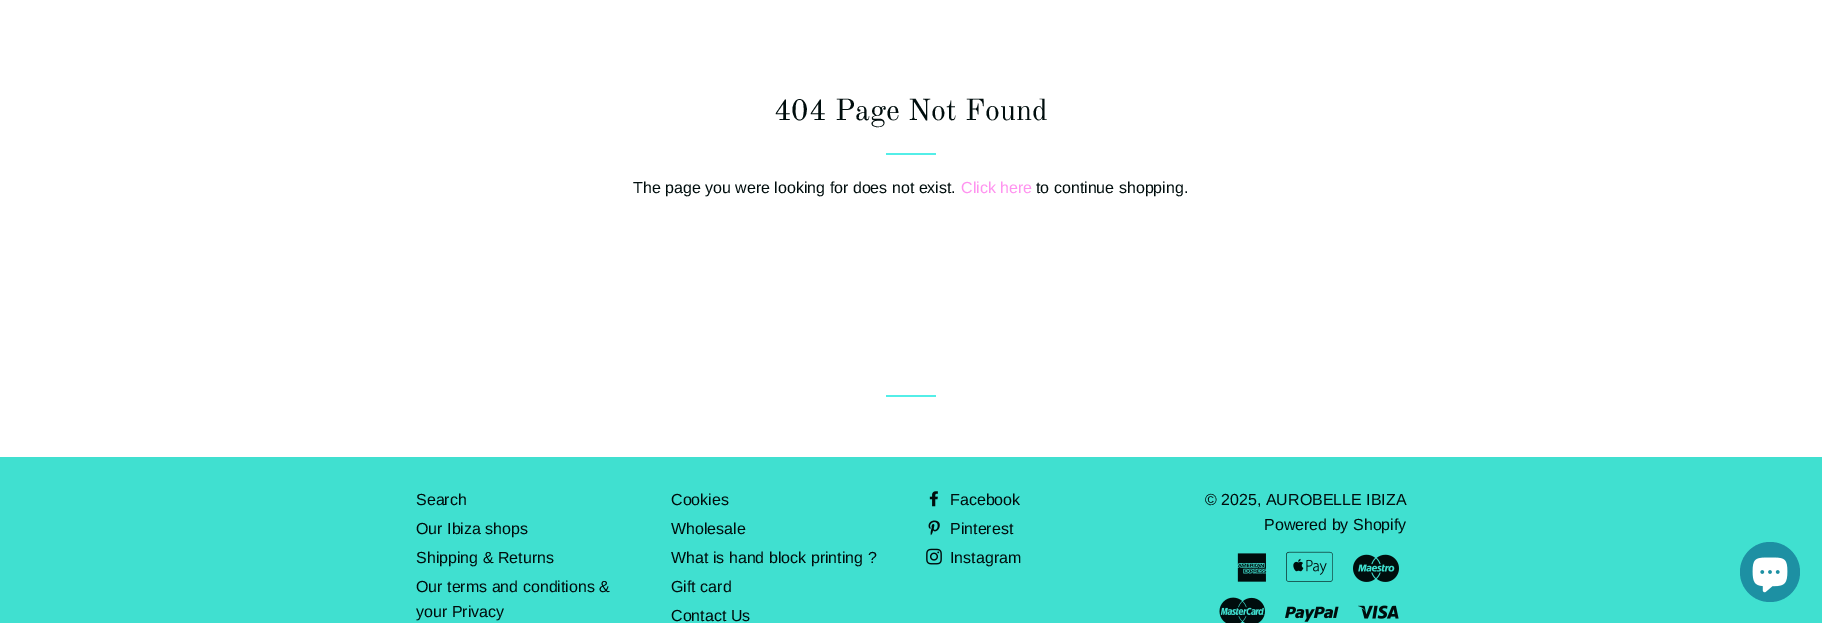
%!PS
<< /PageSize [1822 623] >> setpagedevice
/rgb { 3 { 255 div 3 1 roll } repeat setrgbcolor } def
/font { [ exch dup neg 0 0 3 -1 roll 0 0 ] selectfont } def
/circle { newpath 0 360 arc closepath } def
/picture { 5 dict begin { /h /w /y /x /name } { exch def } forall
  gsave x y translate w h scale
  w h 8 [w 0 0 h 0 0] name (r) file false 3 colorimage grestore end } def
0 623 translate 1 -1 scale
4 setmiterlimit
255 255 255 rgb
0 0 1822 623 rectfill
[
  [886 153 50 2 83 238 232]
  [886 395 50 2 83 238 232]
  [0 457 1822 166 64 224 208]
] { aload pop rgb rectfill } forall
(img/1.rgb) 929 491 9 16 picture
(img/2.rgb) 928 520 12 16 picture
(img/3.rgb) 926 548 16 17 picture
(img/4.rgb) 1237 553 30 29 picture
(img/5.rgb) 1286 551 47 31 picture
(img/6.rgb) 1353 554 46 28 picture
(img/7.rgb) 1219 597 46 26 picture
(img/8.rgb) 1285 606 54 16 picture
(img/9.rgb) 1358 605 41 14 picture
29 144 163 rgb
1770 572 30 circle fill
(img/10.rgb) 1752 557 36 36 picture
/OldStandardTT-Regular 30 font
0 13 13 rgb
774 120 moveto (404 Page Not Found) show
/LiberationSans-Regular 16 font
633 193 moveto (The page you were looking for does not exist.) show
255 147 240 rgb
961 193 moveto (Click here) show
0 13 13 rgb
[
  [(to continue shopping.) 1036 193]
  [(Search) 416 505]
  [(Our Ibiza shops) 416 534]
  [(Shipping & Returns) 416 563]
  [(Our terms and conditions &) 416 592]
  [(your Privacy) 416 617]
  [(Cookies) 671 505]
  [(Wholesale) 671 534]
  [(What is hand block printing ?) 671 563]
  [(Gift card) 671 592]
  [(Contact Us) 671 621]
  [(Facebook) 950 505]
  [(Pinterest) 950 534]
  [(Instagram) 950 563]
  [(© 2025, AUROBELLE IBIZA) 1205 505]
  [(Powered by Shopify) 1264 530]
] { aload pop moveto show } forall
showpage
